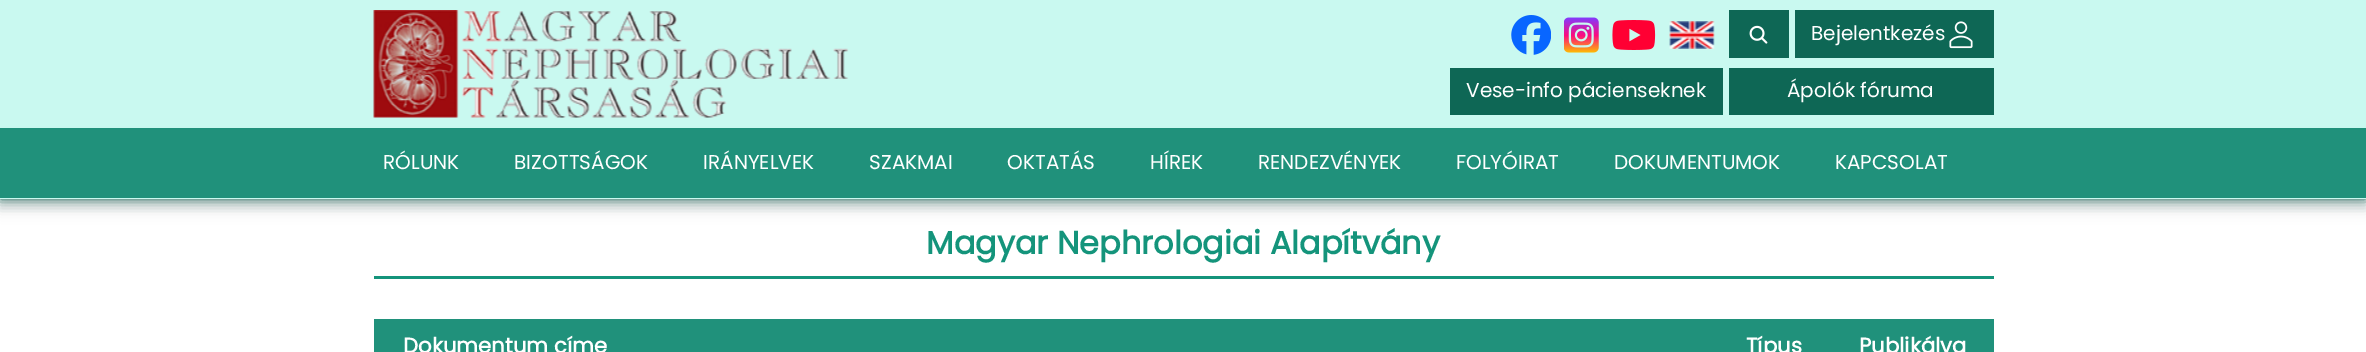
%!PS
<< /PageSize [2366 352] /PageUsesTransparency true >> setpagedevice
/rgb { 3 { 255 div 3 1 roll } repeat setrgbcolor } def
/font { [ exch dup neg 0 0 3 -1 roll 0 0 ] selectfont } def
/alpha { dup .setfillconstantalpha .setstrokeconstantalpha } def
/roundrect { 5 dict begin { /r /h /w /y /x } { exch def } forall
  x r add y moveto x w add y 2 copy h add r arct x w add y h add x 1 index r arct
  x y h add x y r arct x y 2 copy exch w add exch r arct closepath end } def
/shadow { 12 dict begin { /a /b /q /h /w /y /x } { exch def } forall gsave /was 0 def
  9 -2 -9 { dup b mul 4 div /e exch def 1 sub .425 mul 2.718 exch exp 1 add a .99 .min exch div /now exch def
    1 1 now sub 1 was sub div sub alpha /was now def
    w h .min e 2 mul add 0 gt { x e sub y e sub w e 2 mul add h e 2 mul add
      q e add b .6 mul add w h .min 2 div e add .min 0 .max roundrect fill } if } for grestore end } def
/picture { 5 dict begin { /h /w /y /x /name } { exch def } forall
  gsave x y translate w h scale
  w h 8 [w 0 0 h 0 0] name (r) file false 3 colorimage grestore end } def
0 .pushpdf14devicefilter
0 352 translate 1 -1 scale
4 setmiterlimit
255 255 255 rgb
0 0 2366 352 rectfill
14 103 85 rgb
0 0 2366 199 0 6 1 shadow
201 249 240 rgb
0 0 2366 128 rectfill
(img/1.rgb) 373 10 476 108 picture
(img/2.rgb) 1511 15 40 40 picture
(img/3.rgb) 1564 17 35 36 picture
(img/4.rgb) 1612 20 44 30 picture
(img/5.rgb) 1669 21 46 28 picture
14 103 85 rgb
1729 10 60 48 rectfill
(img/6.rgb) 1749 25 19 19 picture
1795 10 199 48 rectfill
(img/7.rgb) 1949 21 24 28 picture
1450 68 273 47 rectfill
1729 68 265 47 rectfill
0 0 0 rgb
0 140 2366 71 0 6 0.1 shadow
[
  [0 128 2366 70 32 145 123]
  [0 198 2366 1 201 249 240]
  [374 276 1620 3 20 148 123]
  [374 319 1620 33 32 145 123]
] { aload pop rgb rectfill } forall
/Poppins-Regular 20 font
255 255 255 rgb
[
  [(Bejelentkezés) 1811 40]
  [(Vese-info pácienseknek) 1466 97]
  [(Ápolók fóruma) 1787 97]
  [(RÓLUNK) 383 169]
  [(BIZOTTSÁGOK) 514 169]
  [(IRÁNYELVEK) 703 169]
  [(SZAKMAI) 869 169]
  [(OKTATÁS) 1007 169]
  [(HÍREK) 1150 169]
  [(RENDEZVÉNYEK) 1258 169]
  [(FOLYÓIRAT) 1456 169]
  [(DOKUMENTUMOK) 1614 169]
  [(KAPCSOLAT) 1835 169]
] { aload pop moveto show } forall
/Poppins-Bold 32 font
20 148 123 rgb
926 254 moveto (Magyar Nephrologiai Alapítvány) show
/Poppins-Bold 21.25 font
255 255 255 rgb
[
  [(Dokumentum címe) 403 353]
  [(Típus) 1746 353]
  [(Publikálva) 1859 353]
] { aload pop moveto show } forall
.poppdf14devicefilter showpage
